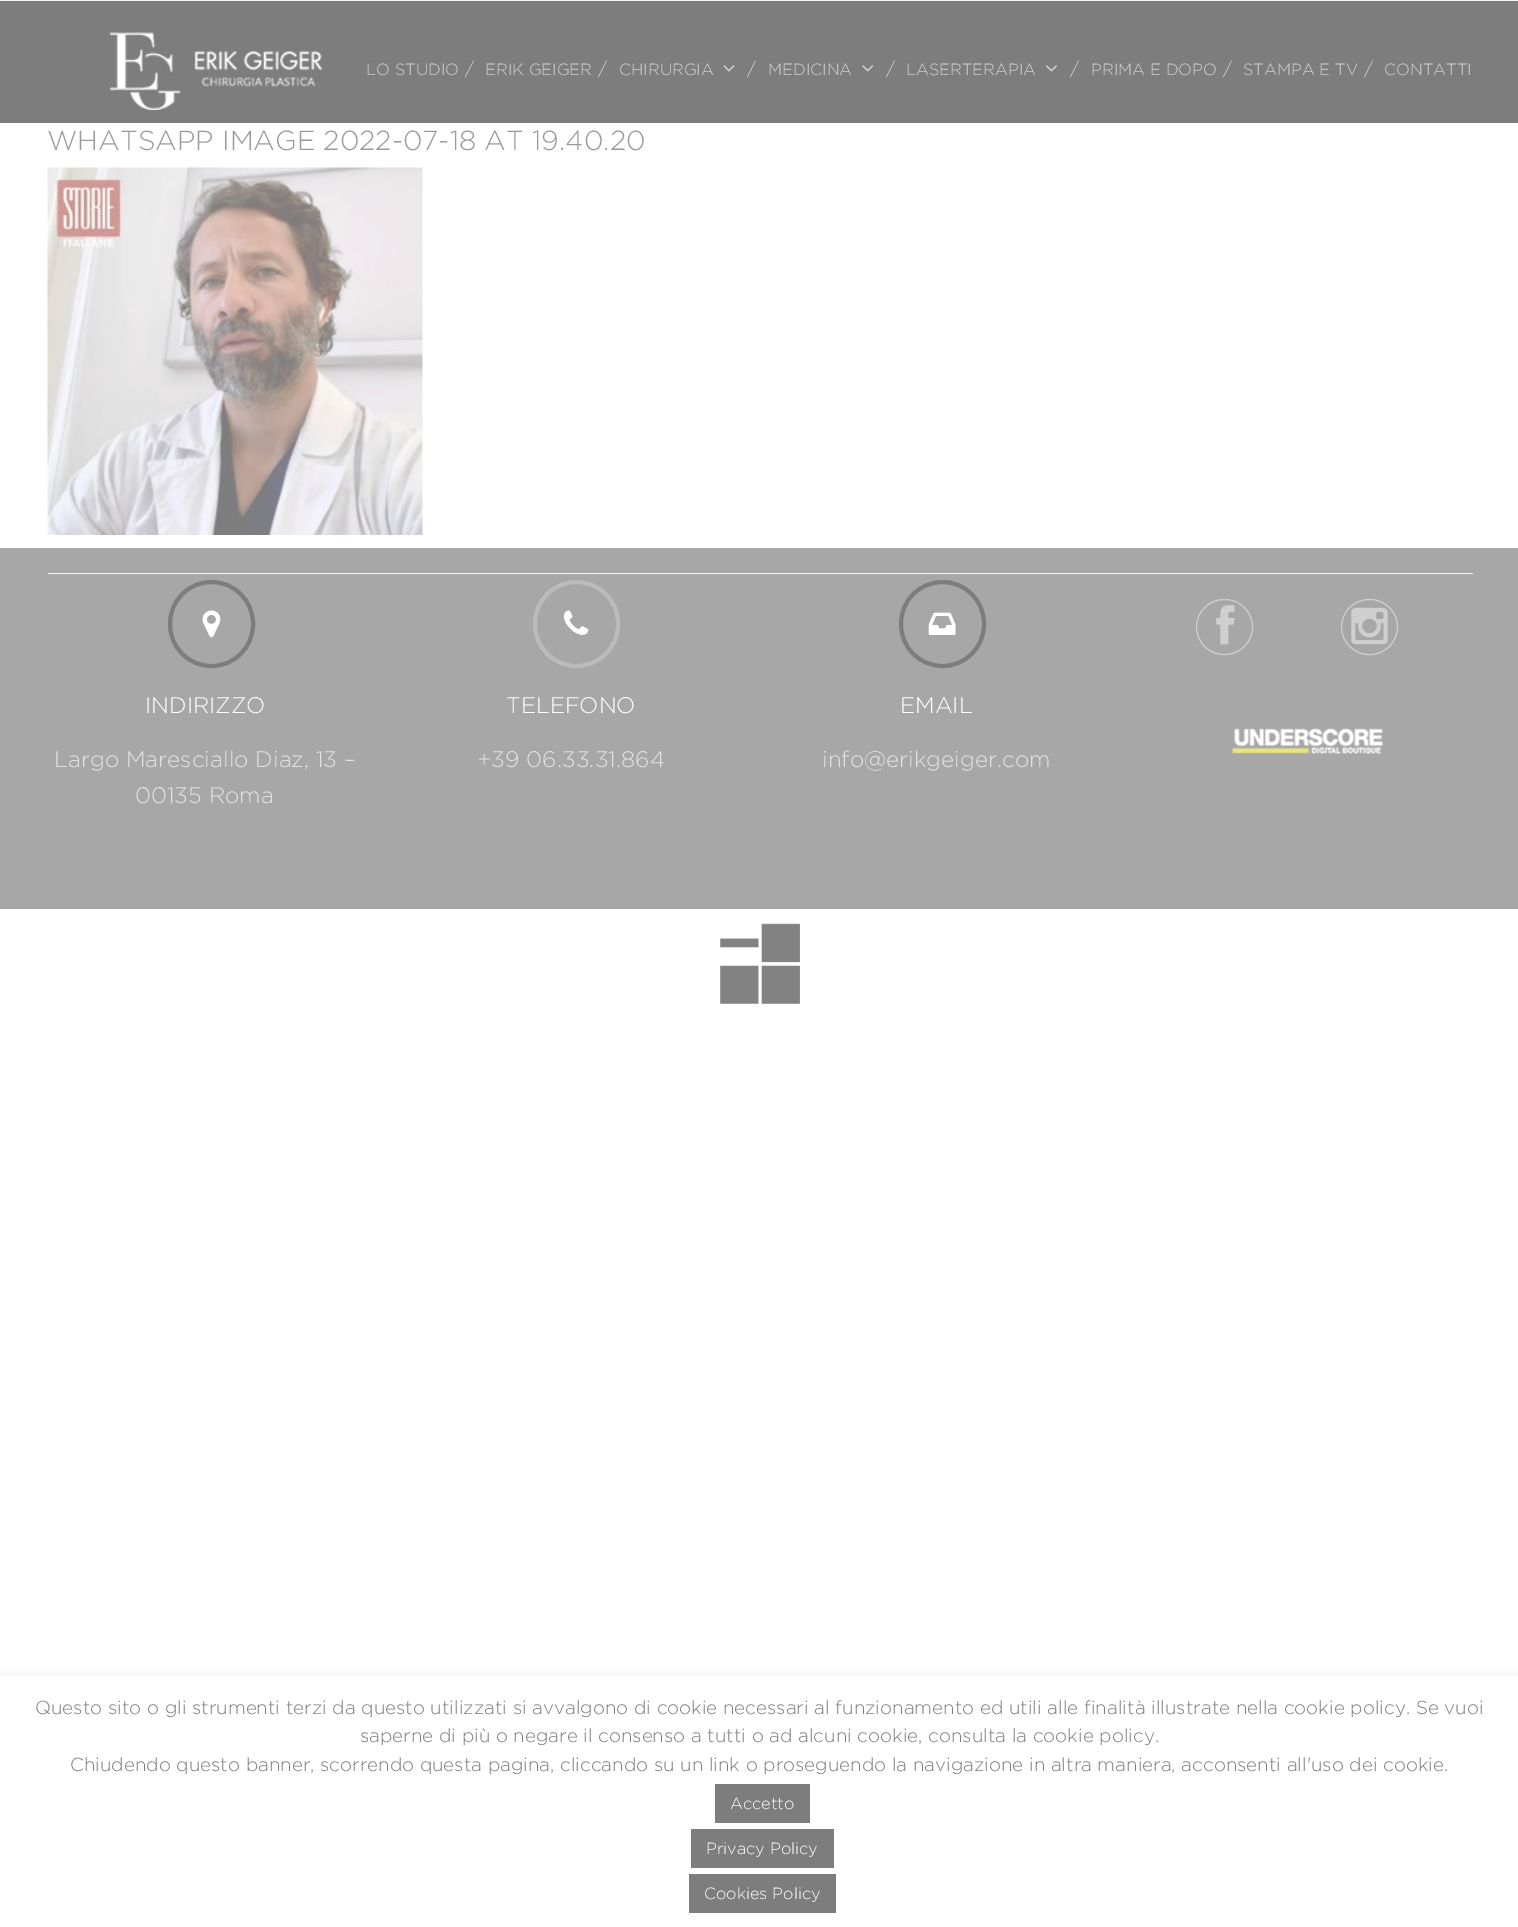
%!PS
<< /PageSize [1518 1927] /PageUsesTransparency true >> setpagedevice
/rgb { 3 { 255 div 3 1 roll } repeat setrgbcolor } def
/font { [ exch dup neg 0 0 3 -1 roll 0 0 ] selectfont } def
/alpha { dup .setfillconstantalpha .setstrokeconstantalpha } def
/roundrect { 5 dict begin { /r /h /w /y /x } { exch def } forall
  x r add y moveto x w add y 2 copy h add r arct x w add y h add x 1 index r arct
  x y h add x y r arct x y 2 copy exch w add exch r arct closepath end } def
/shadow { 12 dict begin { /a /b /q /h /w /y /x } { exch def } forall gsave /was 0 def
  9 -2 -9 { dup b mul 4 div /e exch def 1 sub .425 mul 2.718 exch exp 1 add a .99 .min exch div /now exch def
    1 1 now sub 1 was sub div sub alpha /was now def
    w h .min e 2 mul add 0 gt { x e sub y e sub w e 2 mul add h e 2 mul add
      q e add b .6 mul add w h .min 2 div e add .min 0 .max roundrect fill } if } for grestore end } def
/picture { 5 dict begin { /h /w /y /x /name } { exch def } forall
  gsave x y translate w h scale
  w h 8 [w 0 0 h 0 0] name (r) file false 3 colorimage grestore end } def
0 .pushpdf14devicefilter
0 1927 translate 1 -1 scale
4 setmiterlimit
255 255 255 rgb
0 0 1518 1927 rectfill
125 125 125 rgb
0 1 1518 122 rectfill
248 246 246 rgb
0 0 1518 1 rectfill
(img/1.rgb) 110 32 213 78 picture
(img/2.rgb) 723 65 12 7 picture
(img/3.rgb) 862 65 12 7 picture
(img/4.rgb) 1045 65 12 7 picture
(img/5.rgb) 47 167 376 368 picture
167 167 167 rgb
0 548 1518 361 rectfill
246 246 246 rgb
48 573 1425 1 rectfill
125 125 125 rgb
4 setlinewidth
170 582 83 84 41.5 roundrect stroke
(img/6.rgb) 202 610 19 28 picture
187 187 187 rgb
535 582 83 84 41.5 roundrect stroke
(img/7.rgb) 563 610 26 25 picture
125 125 125 rgb
901 582 83 84 41.5 roundrect stroke
(img/8.rgb) 928 612 28 23 picture
207 207 207 rgb
1 setlinewidth
1196.5 599.5 56 55 27.5 roundrect stroke
(img/9.rgb) 1216 605 19 40 picture
1341.5 599.5 56 55 27.5 roundrect stroke
(img/10.rgb) 1351 607 37 38 picture
(img/11.rgb) 1232 728 151 26 picture
(img/12.rgb) 720 923 80 81 picture
213 212 212 rgb
0 1675 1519 251 0 6 0.3 shadow
[
  [0 1676 1518 251 255 255 255]
  [715 1784 95 39 125 125 125]
  [691 1829 143 39 125 125 125]
  [689 1874 147 39 125 125 125]
] { aload pop rgb rectfill } forall
/Gotham-Light 16.25 font
209 209 209 rgb
366 75 moveto (LO STUDIO) show
/Gotham-Light 18 font
465 75 moveto (/) show
/Gotham-Light 16.25 font
485 75 moveto (ERIK GEIGER) show
/Gotham-Light 18 font
598 75 moveto (/) show
/Gotham-Light 16.25 font
619 75 moveto (CHIRURGIA) show
/Gotham-Light 18 font
747 75 moveto (/) show
/Gotham-Light 16.25 font
768 75 moveto (MEDICINA) show
/Gotham-Light 18 font
886 75 moveto (/) show
/Gotham-Light 16.25 font
906 75 moveto (LASERTERAPIA) show
/Gotham-Light 18 font
1070 75 moveto (/) show
/Gotham-Light 16.25 font
1091 75 moveto (PRIMA E DOPO) show
/Gotham-Light 18 font
1223 75 moveto (/) show
/Gotham-Light 16.25 font
1243 75 moveto (STAMPA E TV) show
/Gotham-Light 18 font
1364 75 moveto (/) show
/Gotham-Light 16.25 font
1384 75 moveto (CONTATTI) show
/Gotham-Light 27.5 font
154 154 154 rgb
47 150 moveto (WHATSAPP IMAGE 2022-07-18 AT 19.40.20) show
/Gotham-Light 22.5 font
255 255 255 rgb
145 713 moveto (INDIRIZZO) show
226 226 226 rgb
54 767 moveto (Largo Maresciallo Diaz, 13 –) show
135 803 moveto (00135 Roma) show
255 255 255 rgb
506 713 moveto (TELEFONO) show
226 226 226 rgb
477 767 moveto (+39 06.33.31.864) show
255 255 255 rgb
900 713 moveto (EMAIL) show
226 226 226 rgb
822 767 moveto (info@erikgeiger.com) show
/Gotham-Light 18.75 font
125 125 125 rgb
[
  [(Questo sito o gli strumenti terzi da questo utilizzati si avvalgono di cookie necessari al funzionamento ed utili alle finalità illustrate nella cookie policy. Se vuoi) 35 1714]
  [(saperne di più o negare il consenso a tutti o ad alcuni cookie, consulta la cookie policy.) 360 1742]
  [(Chiudendo questo banner, scorrendo questa pagina, cliccando su un link o proseguendo la navigazione in altra maniera, acconsenti all'uso dei cookie.) 70 1771]
] { aload pop moveto show } forall
/Gotham-Light 16.25 font
255 255 255 rgb
[
  [(Accetto) 730 1809]
  [(Privacy Policy) 706 1854]
  [(Cookies Policy) 704 1899]
] { aload pop moveto show } forall
.poppdf14devicefilter showpage
